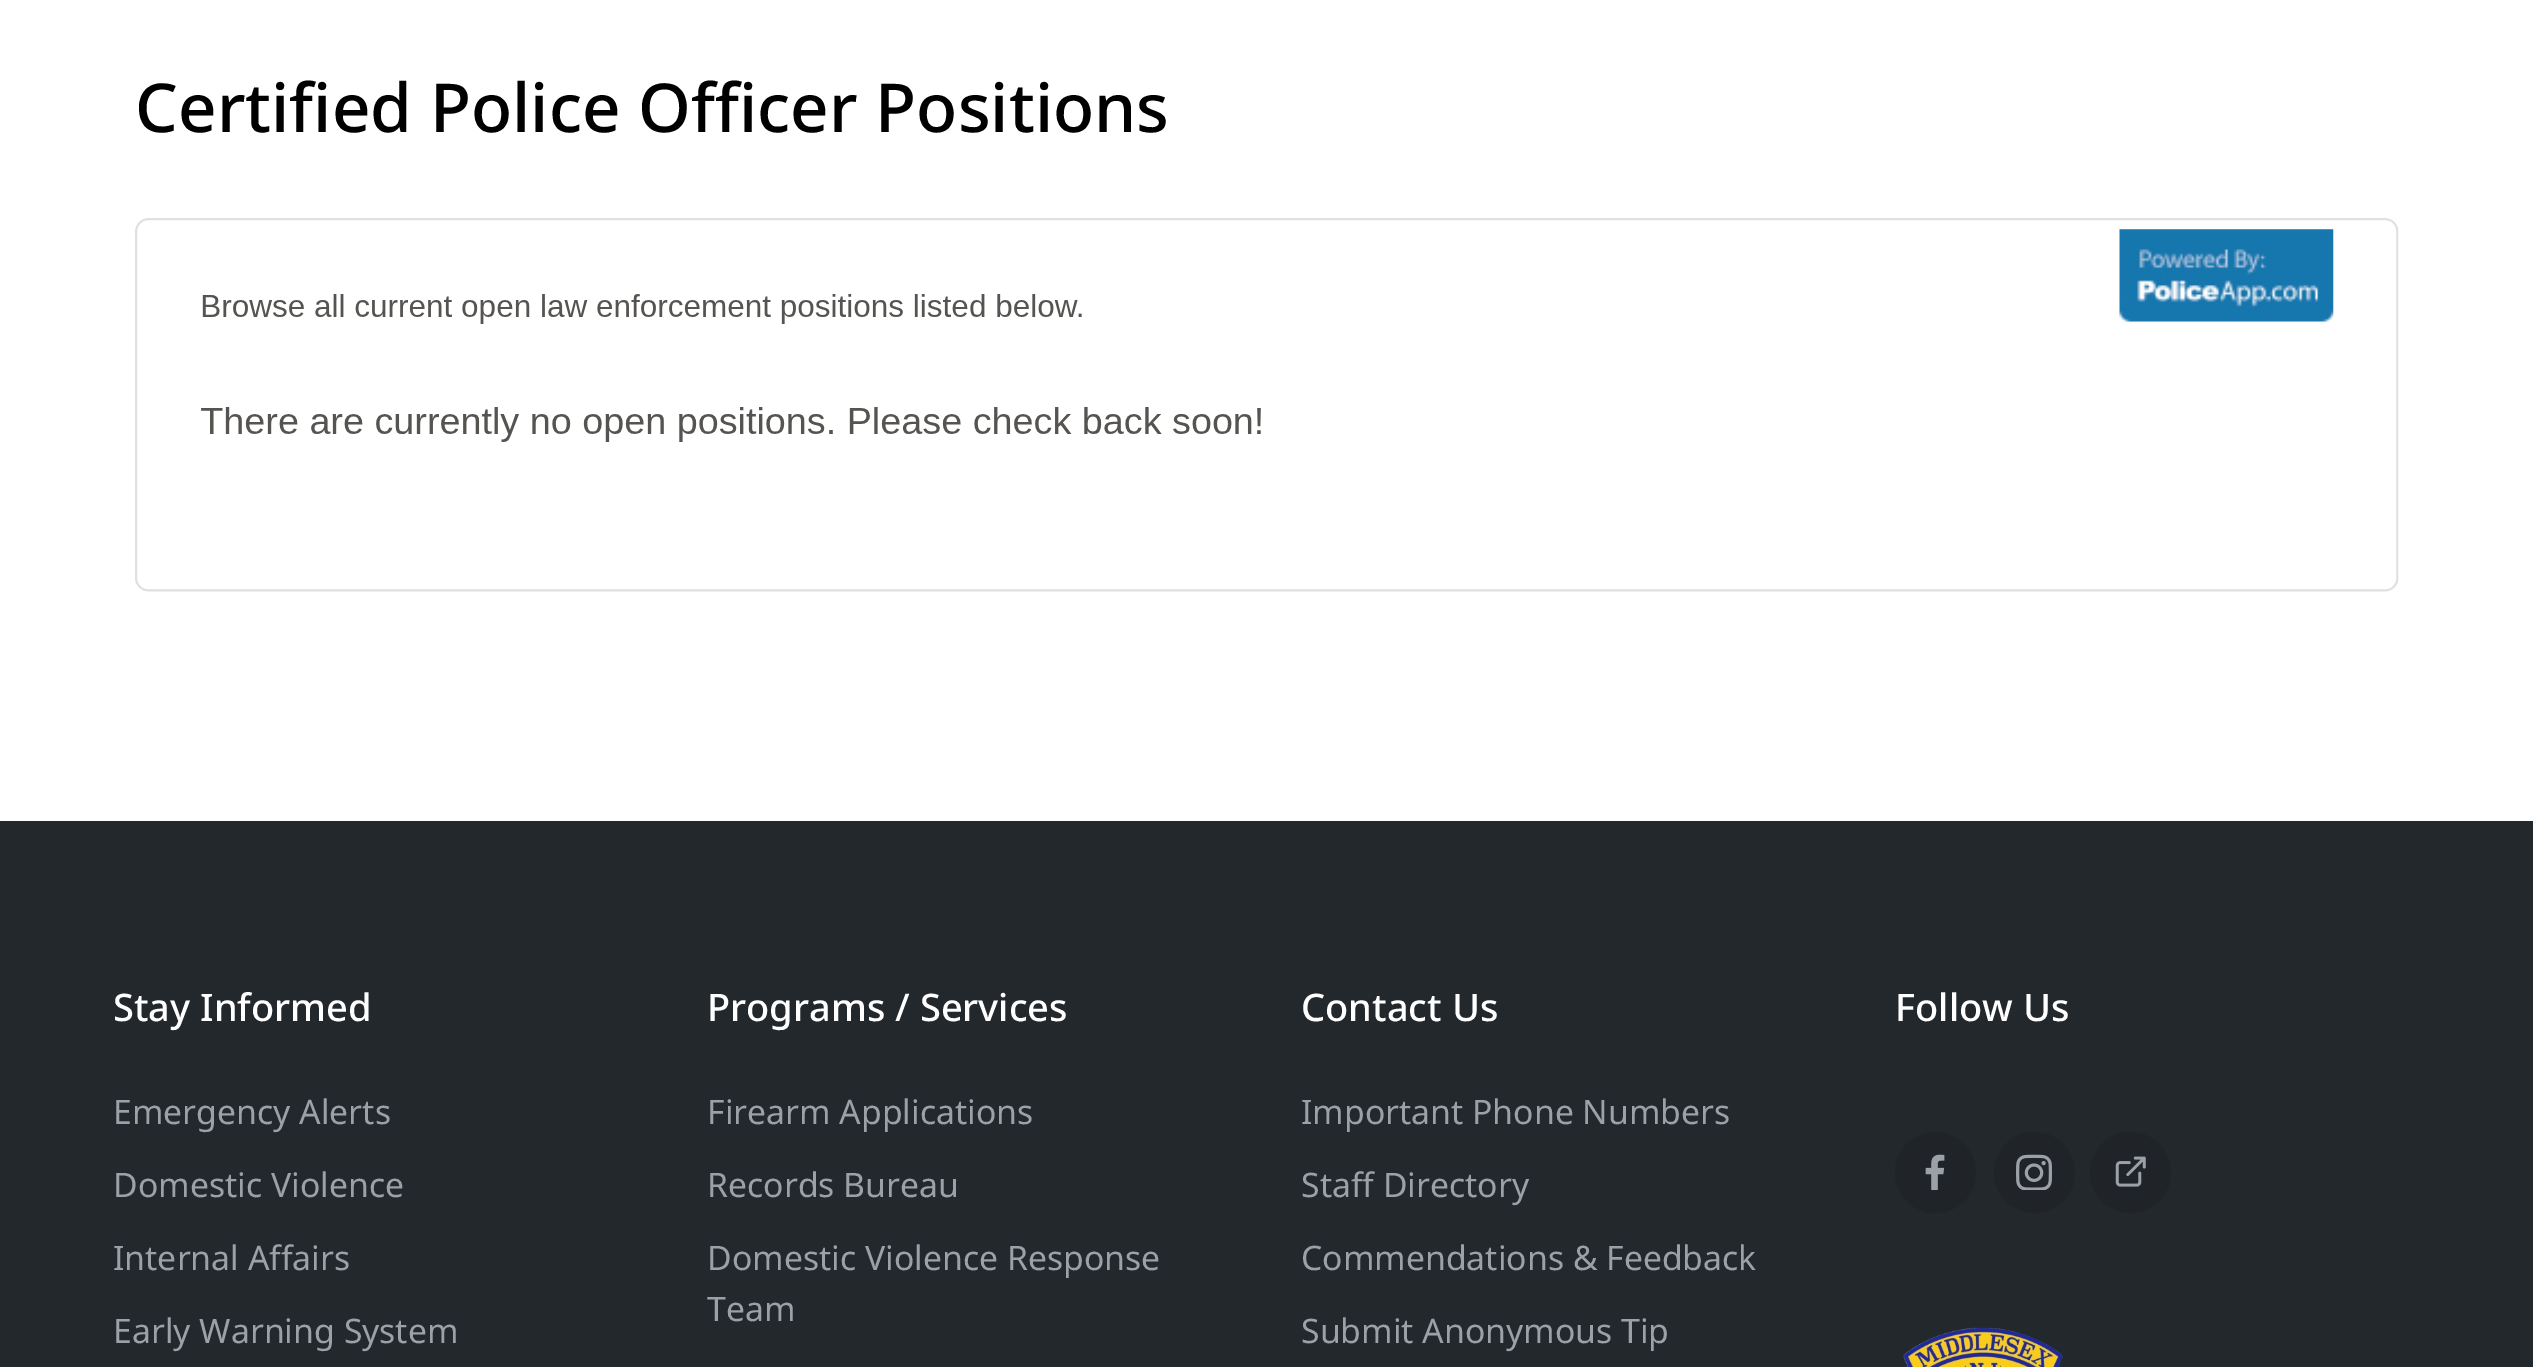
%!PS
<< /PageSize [2533 1367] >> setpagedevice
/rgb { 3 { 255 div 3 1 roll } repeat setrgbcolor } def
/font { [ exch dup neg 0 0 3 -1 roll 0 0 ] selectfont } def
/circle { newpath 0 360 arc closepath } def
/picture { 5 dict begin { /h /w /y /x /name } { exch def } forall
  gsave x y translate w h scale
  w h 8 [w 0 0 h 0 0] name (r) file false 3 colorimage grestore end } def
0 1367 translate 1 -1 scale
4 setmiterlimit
255 255 255 rgb
0 0 2533 1367 rectfill
(img/1.rgb) 135 218 2264 374 picture
35 40 45 rgb
0 821 2533 546 rectfill
32 36 41 rgb
1935.5 1172.5 40.5 circle fill
(img/2.rgb) 1925 1154 20 36 picture
2034.5 1172.5 40.5 circle fill
(img/3.rgb) 2016 1154 36 36 picture
2130.5 1172.5 40.5 circle fill
(img/4.rgb) 2115 1156 31 31 picture
(img/5.rgb) 1903 1327 160 40 picture
/NotoSans-Medium 67.5 font
0 0 0 rgb
135 132 moveto (Certified Police Officer Positions) show
/NotoSans-Medium 38 font
255 255 255 rgb
113 1021 moveto (Stay Informed) show
/NotoSans-Regular 33.75 font
155 161 167 rgb
[
  [(Emergency Alerts) 113 1124]
  [(Domestic Violence) 113 1197]
  [(Internal Affairs) 113 1270]
  [(Early Warning System) 113 1343]
] { aload pop moveto show } forall
/NotoSans-Medium 38 font
255 255 255 rgb
707 1021 moveto (Programs / Services) show
/NotoSans-Regular 33.75 font
155 161 167 rgb
[
  [(Firearm Applications) 707 1124]
  [(Records Bureau) 707 1197]
  [(Domestic Violence Response) 707 1270]
  [(Team) 707 1321]
] { aload pop moveto show } forall
/NotoSans-Medium 38 font
255 255 255 rgb
1301 1021 moveto (Contact Us) show
/NotoSans-Regular 33.75 font
155 161 167 rgb
[
  [(Important Phone Numbers) 1301 1124]
  [(Staff Directory) 1301 1197]
  [(Commendations & Feedback) 1301 1270]
  [(Submit Anonymous Tip) 1301 1343]
] { aload pop moveto show } forall
/NotoSans-Medium 38 font
255 255 255 rgb
1895 1021 moveto (Follow Us) show
showpage
